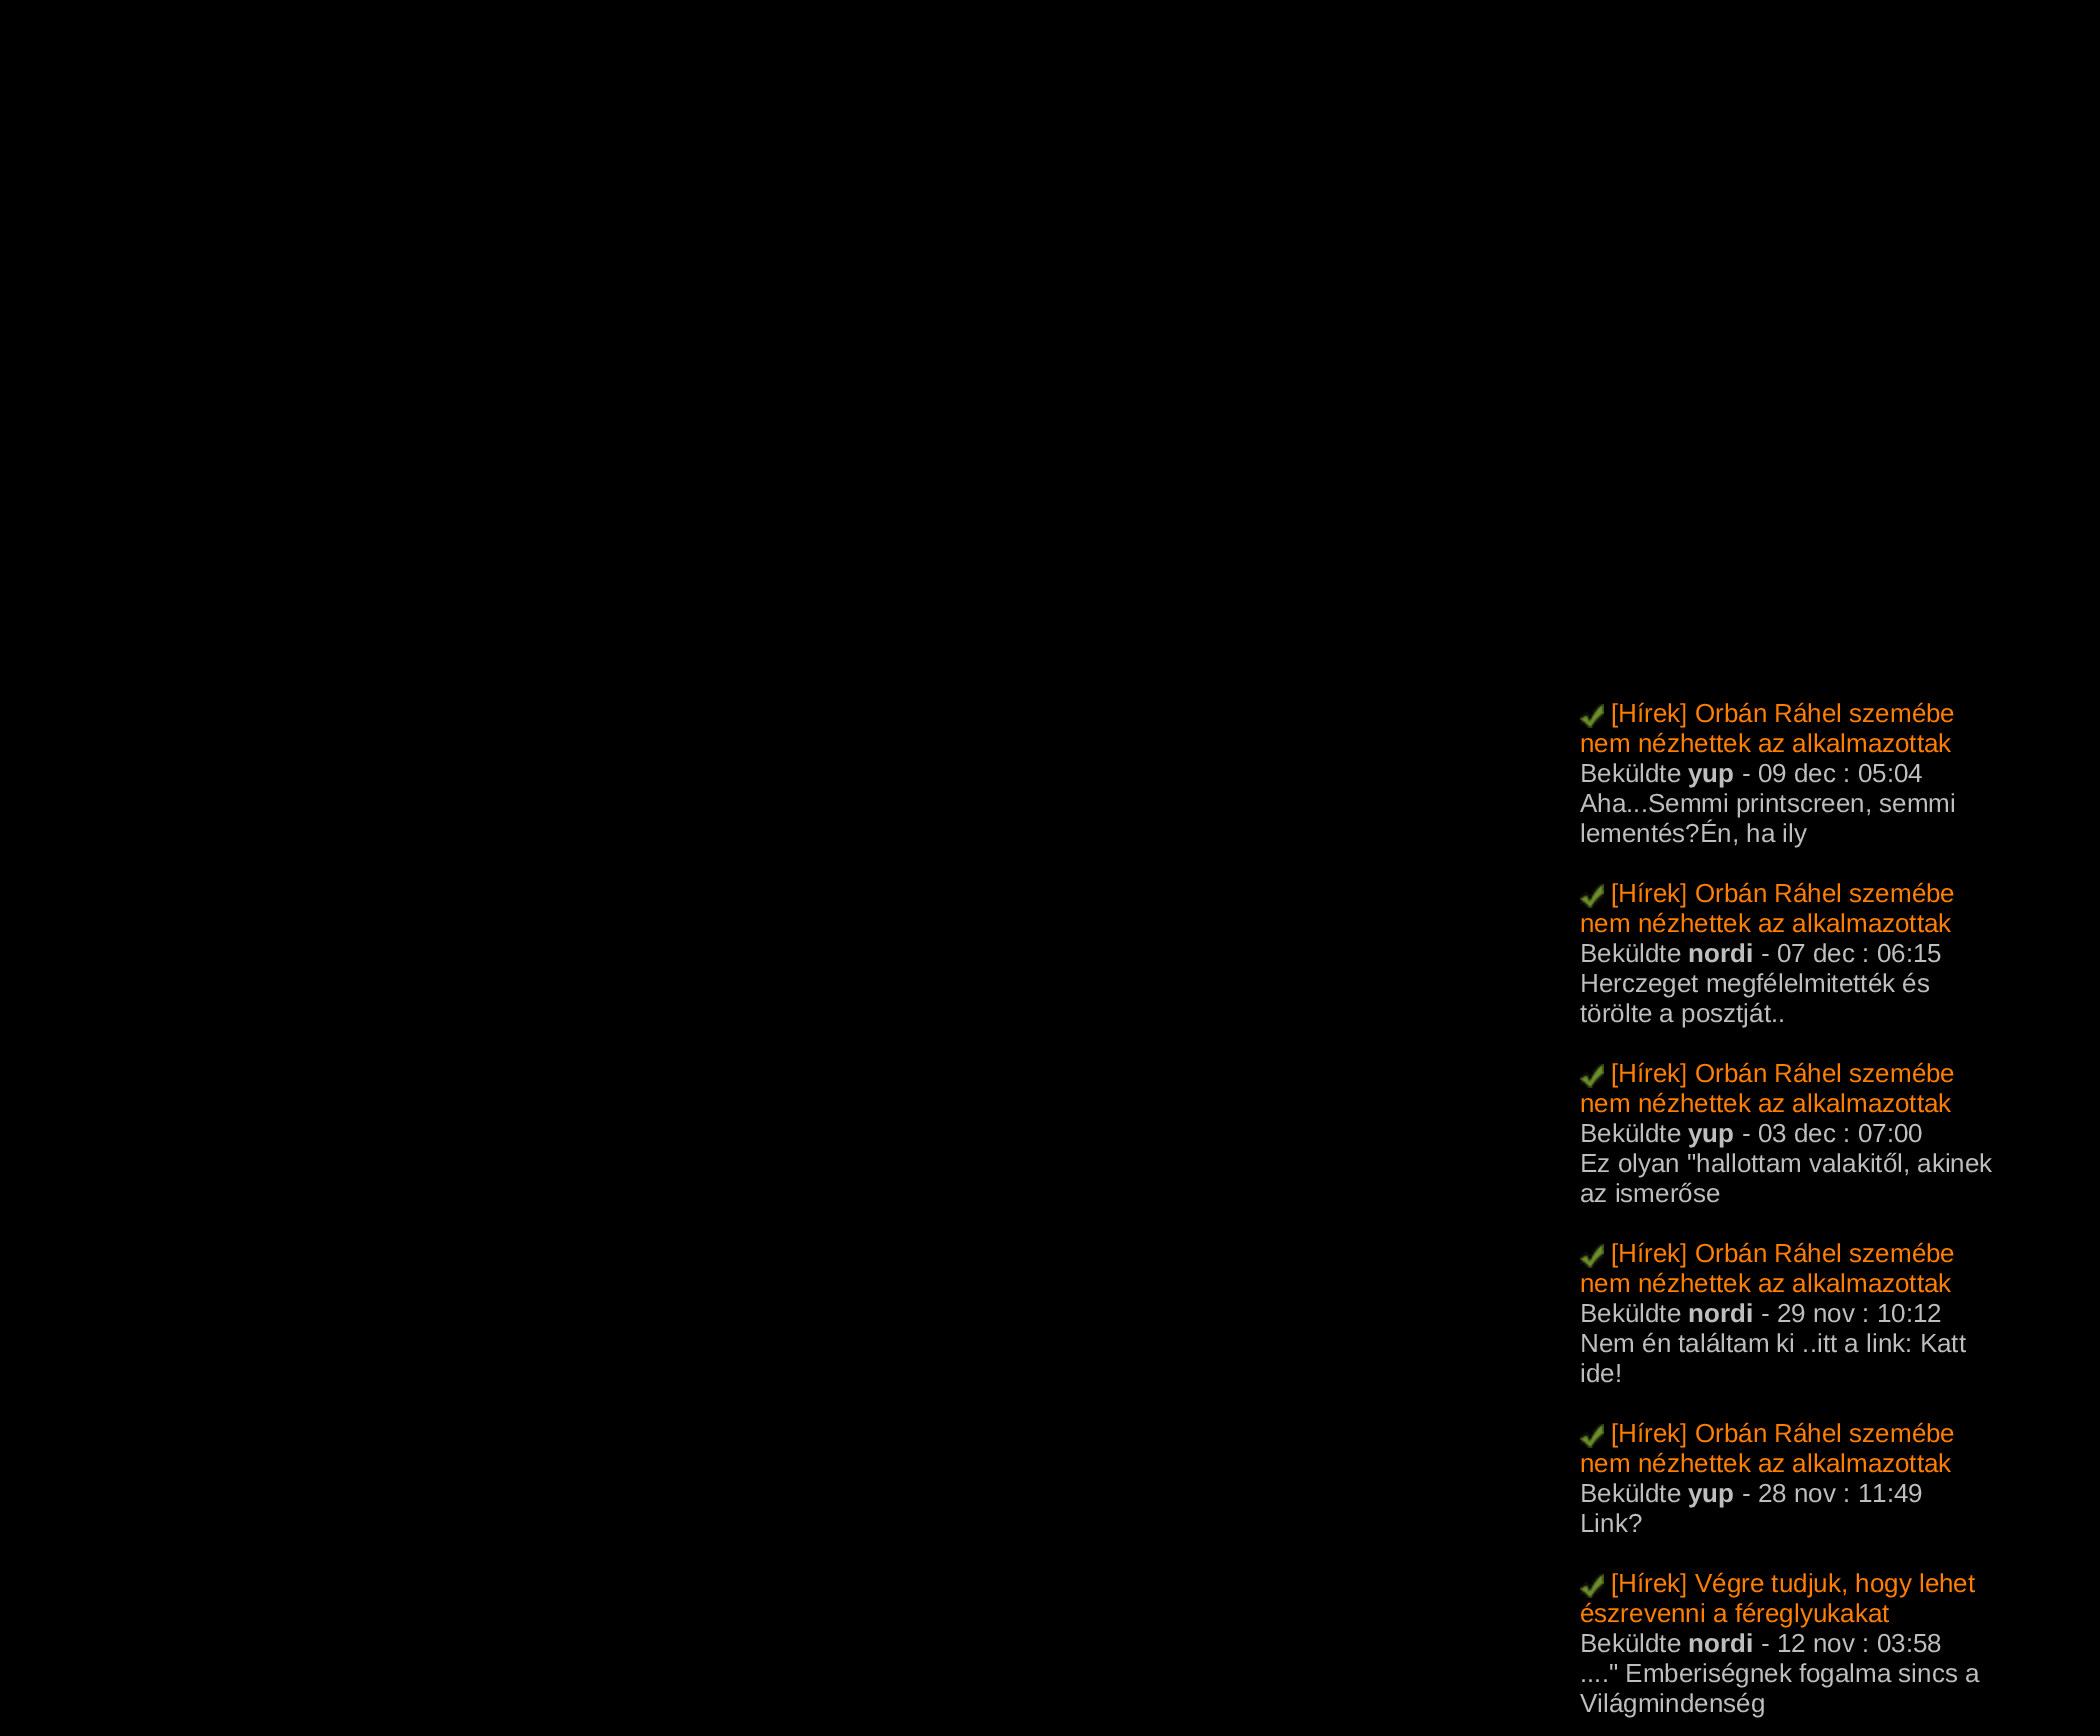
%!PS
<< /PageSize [2100 1736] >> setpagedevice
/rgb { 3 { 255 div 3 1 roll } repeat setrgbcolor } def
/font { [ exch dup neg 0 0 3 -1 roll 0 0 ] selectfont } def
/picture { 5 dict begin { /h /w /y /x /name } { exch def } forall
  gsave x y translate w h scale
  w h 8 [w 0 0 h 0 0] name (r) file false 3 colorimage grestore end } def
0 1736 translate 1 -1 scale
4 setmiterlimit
0 0 0 rgb
0 0 2100 1736 rectfill
(img/1.rgb) 1580 704 24 24 picture
(img/1.rgb) 1580 884 24 24 picture
(img/1.rgb) 1580 1064 24 24 picture
(img/1.rgb) 1580 1244 24 24 picture
(img/1.rgb) 1580 1424 24 24 picture
(img/1.rgb) 1580 1574 24 24 picture
/LiberationSans-Regular 26 font
255 127 0 rgb
1611 722 moveto ([Hírek] Orbán Ráhel szemébe) show
1580 752 moveto (nem nézhettek az alkalmazottak) show
190 190 190 rgb
1580 782 moveto (Beküldte) show
/LiberationSans-Bold 26 font
1688 782 moveto (yup) show
/LiberationSans-Regular 26 font
[
  [(- 09 dec : 05:04) 1742 782]
  [(Aha...Semmi printscreen, semmi) 1580 812]
  [(lementés?Én, ha ily) 1580 842]
] { aload pop moveto show } forall
255 127 0 rgb
1611 902 moveto ([Hírek] Orbán Ráhel szemébe) show
1580 932 moveto (nem nézhettek az alkalmazottak) show
190 190 190 rgb
1580 962 moveto (Beküldte) show
/LiberationSans-Bold 26 font
1688 962 moveto (nordi) show
/LiberationSans-Regular 26 font
[
  [(- 07 dec : 06:15) 1761 962]
  [(Herczeget megfélelmitették és) 1580 992]
  [(törölte a posztját..) 1580 1022]
] { aload pop moveto show } forall
255 127 0 rgb
1611 1082 moveto ([Hírek] Orbán Ráhel szemébe) show
1580 1112 moveto (nem nézhettek az alkalmazottak) show
190 190 190 rgb
1580 1142 moveto (Beküldte) show
/LiberationSans-Bold 26 font
1688 1142 moveto (yup) show
/LiberationSans-Regular 26 font
[
  [(- 03 dec : 07:00) 1742 1142]
  [(Ez olyan "hallottam valakitől, akinek) 1580 1172]
  [(az ismerőse) 1580 1202]
] { aload pop moveto show } forall
255 127 0 rgb
1611 1262 moveto ([Hírek] Orbán Ráhel szemébe) show
1580 1292 moveto (nem nézhettek az alkalmazottak) show
190 190 190 rgb
1580 1322 moveto (Beküldte) show
/LiberationSans-Bold 26 font
1688 1322 moveto (nordi) show
/LiberationSans-Regular 26 font
[
  [(- 29 nov : 10:12) 1761 1322]
  [(Nem én találtam ki ..itt a link: Katt) 1580 1352]
  [(ide!) 1580 1382]
] { aload pop moveto show } forall
255 127 0 rgb
1611 1442 moveto ([Hírek] Orbán Ráhel szemébe) show
1580 1472 moveto (nem nézhettek az alkalmazottak) show
190 190 190 rgb
1580 1502 moveto (Beküldte) show
/LiberationSans-Bold 26 font
1688 1502 moveto (yup) show
/LiberationSans-Regular 26 font
1742 1502 moveto (- 28 nov : 11:49) show
1580 1532 moveto (Link?) show
255 127 0 rgb
1611 1592 moveto ([Hírek] Végre tudjuk, hogy lehet) show
1580 1622 moveto (észrevenni a féreglyukakat) show
190 190 190 rgb
1580 1652 moveto (Beküldte) show
/LiberationSans-Bold 26 font
1688 1652 moveto (nordi) show
/LiberationSans-Regular 26 font
[
  [(- 12 nov : 03:58) 1761 1652]
  [(...." Emberiségnek fogalma sincs a) 1580 1682]
  [(Világmindenség) 1580 1712]
] { aload pop moveto show } forall
showpage
